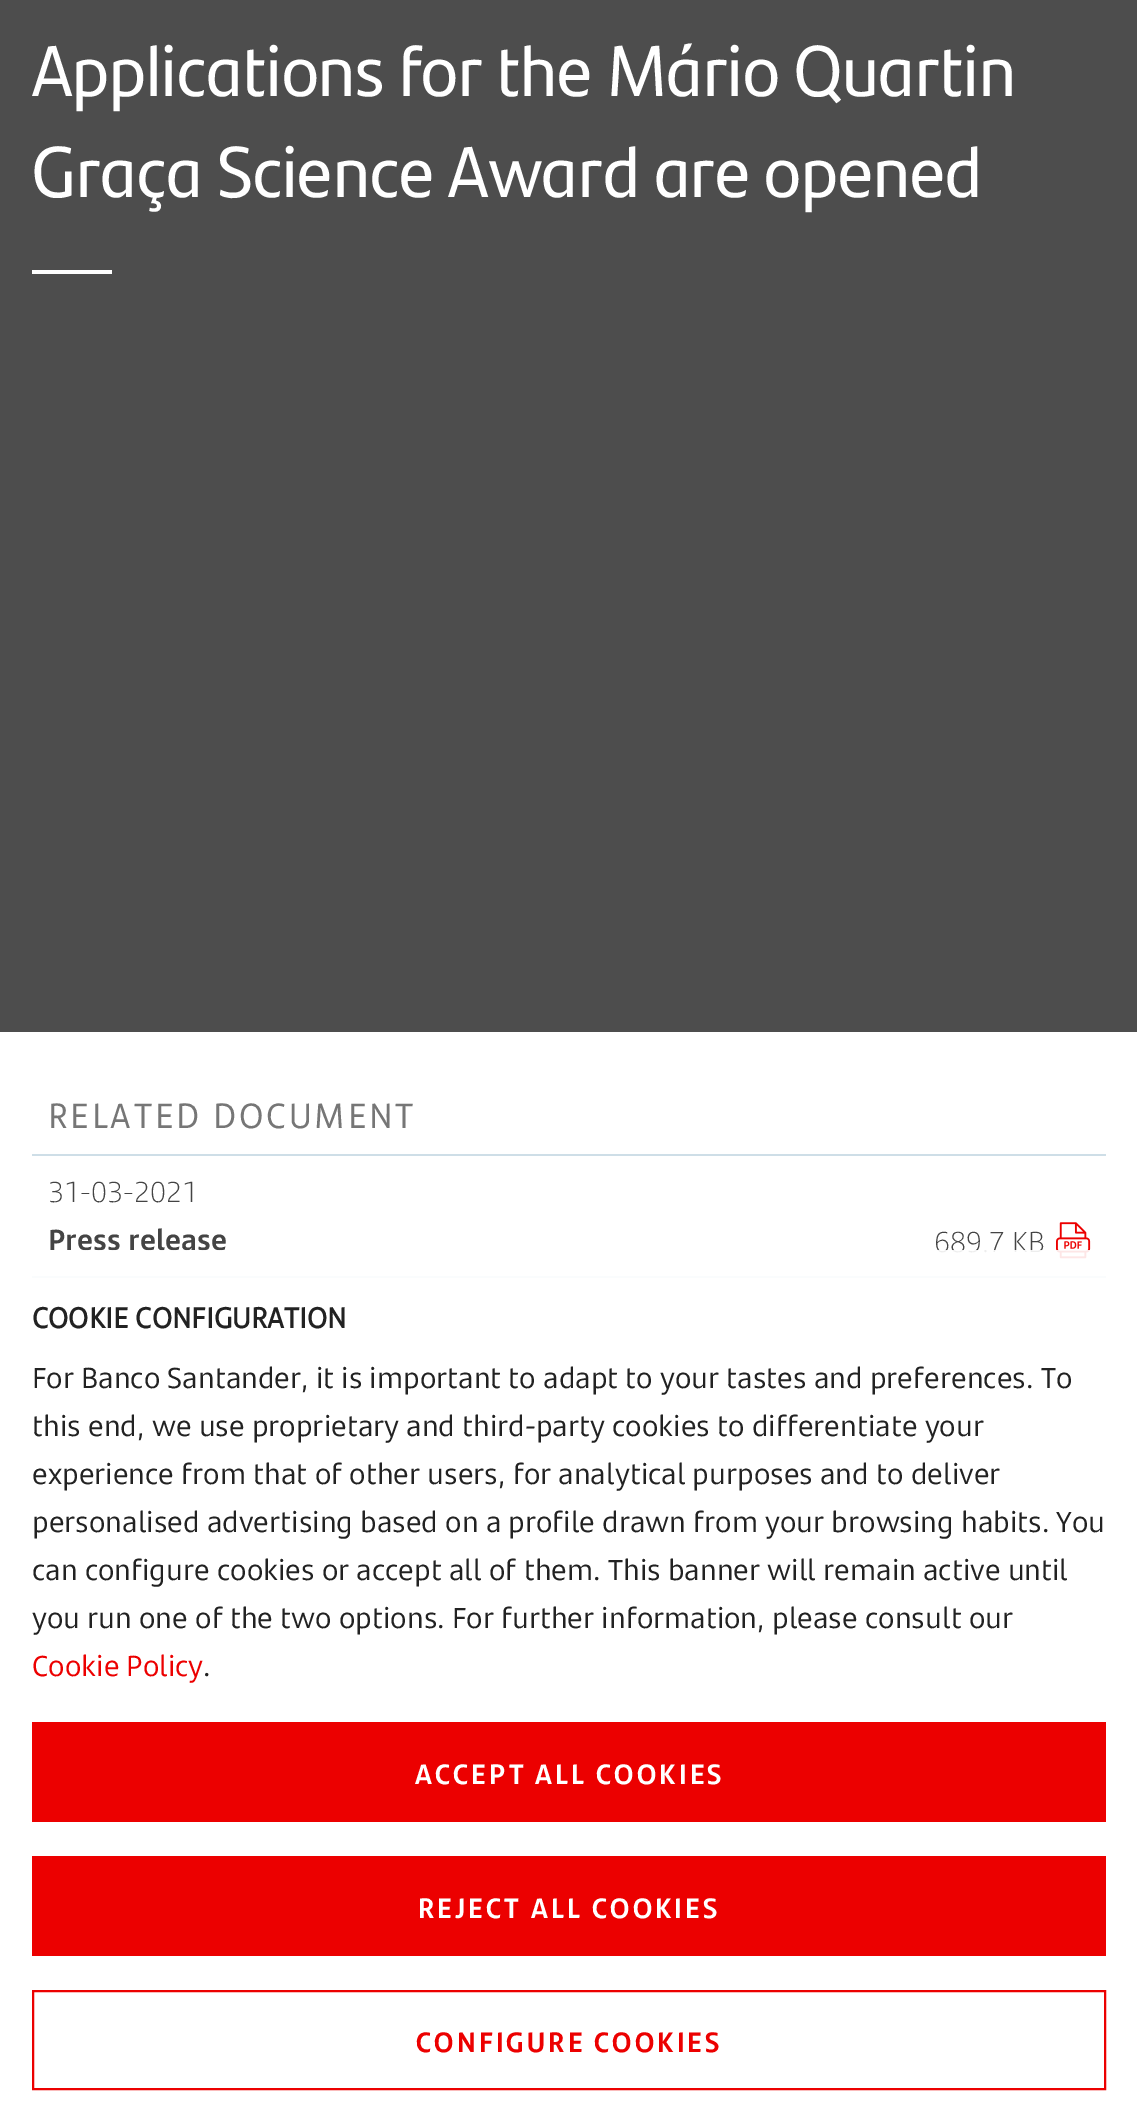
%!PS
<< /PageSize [1137 2123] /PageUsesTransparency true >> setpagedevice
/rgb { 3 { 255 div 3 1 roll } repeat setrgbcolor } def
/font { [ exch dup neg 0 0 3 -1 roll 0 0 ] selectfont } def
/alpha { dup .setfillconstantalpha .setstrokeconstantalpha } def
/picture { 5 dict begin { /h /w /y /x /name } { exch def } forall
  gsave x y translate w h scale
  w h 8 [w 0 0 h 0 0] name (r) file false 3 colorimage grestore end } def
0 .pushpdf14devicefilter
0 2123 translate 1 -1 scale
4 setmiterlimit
255 255 255 rgb
0 0 1137 2123 rectfill
[
  [0 0 1137 1032 77 77 77]
  [32 270 80 4 255 255 255]
  [32 1154 1074 2 206 222 231]
  [32 1276 1074 2 206 222 231]
] { aload pop rgb rectfill } forall
(img/1.rgb) 1056 1222 35 37 picture
236 0 0 rgb
32 1722 1074 100 rectfill
32 1856 1074 100 rectfill
2 setlinewidth
33 1991 1072 98 rectstroke
/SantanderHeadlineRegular-Regular 72 font
255 255 255 rgb
32 96 moveto (Applications for the Mário Quartin) show
32 197 moveto (Graça Science Award are opened) show
/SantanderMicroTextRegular-Regular 34 font
118 118 118 rgb
48 1128 moveto 2.75 0 (RELATED DOCUMENT) ashow
/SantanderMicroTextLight-Light 28 font
68 68 68 rgb
48 1202 moveto (31-03-2021) show
/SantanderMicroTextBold-Bold 28 font
48 1250 moveto (Press release) show
/SantanderMicroTextLight-Light 28 font
934 1252 moveto (689.7 KB) show
0.9 alpha
255 255 255 rgb
32 1250 1074 28 rectfill
/SantanderMicroTextRegular-Bold 28 font
1 alpha
34 34 34 rgb
32 1328 moveto (COOKIE CONFIGURATION) show
/SantanderMicroTextRegular-Regular 28 font
[
  [(For Banco Santander, it is important to adapt to your tastes and preferences. To) 32 1388]
  [(this end, we use proprietary and third-party cookies to differentiate your) 32 1436]
  [(experience from that of other users, for analytical purposes and to deliver) 32 1484]
  [(personalised advertising based on a profile drawn from your browsing habits. You) 32 1532]
  [(can configure cookies or accept all of them. This banner will remain active until) 32 1580]
  [(you run one of the two options. For further information, please consult our) 32 1628]
] { aload pop moveto show } forall
236 0 0 rgb
32 1676 moveto (Cookie Policy) show
34 34 34 rgb
203 1676 moveto (.) show
/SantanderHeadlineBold-Bold 28 font
255 255 255 rgb
415 1784 moveto 3.25 0 (ACCEPT ALL COOKIES) ashow
418 1918 moveto 3.25 0 (REJECT ALL COOKIES) ashow
236 0 0 rgb
416 2052 moveto 3.25 0 (CONFIGURE COOKIES) ashow
.poppdf14devicefilter showpage
